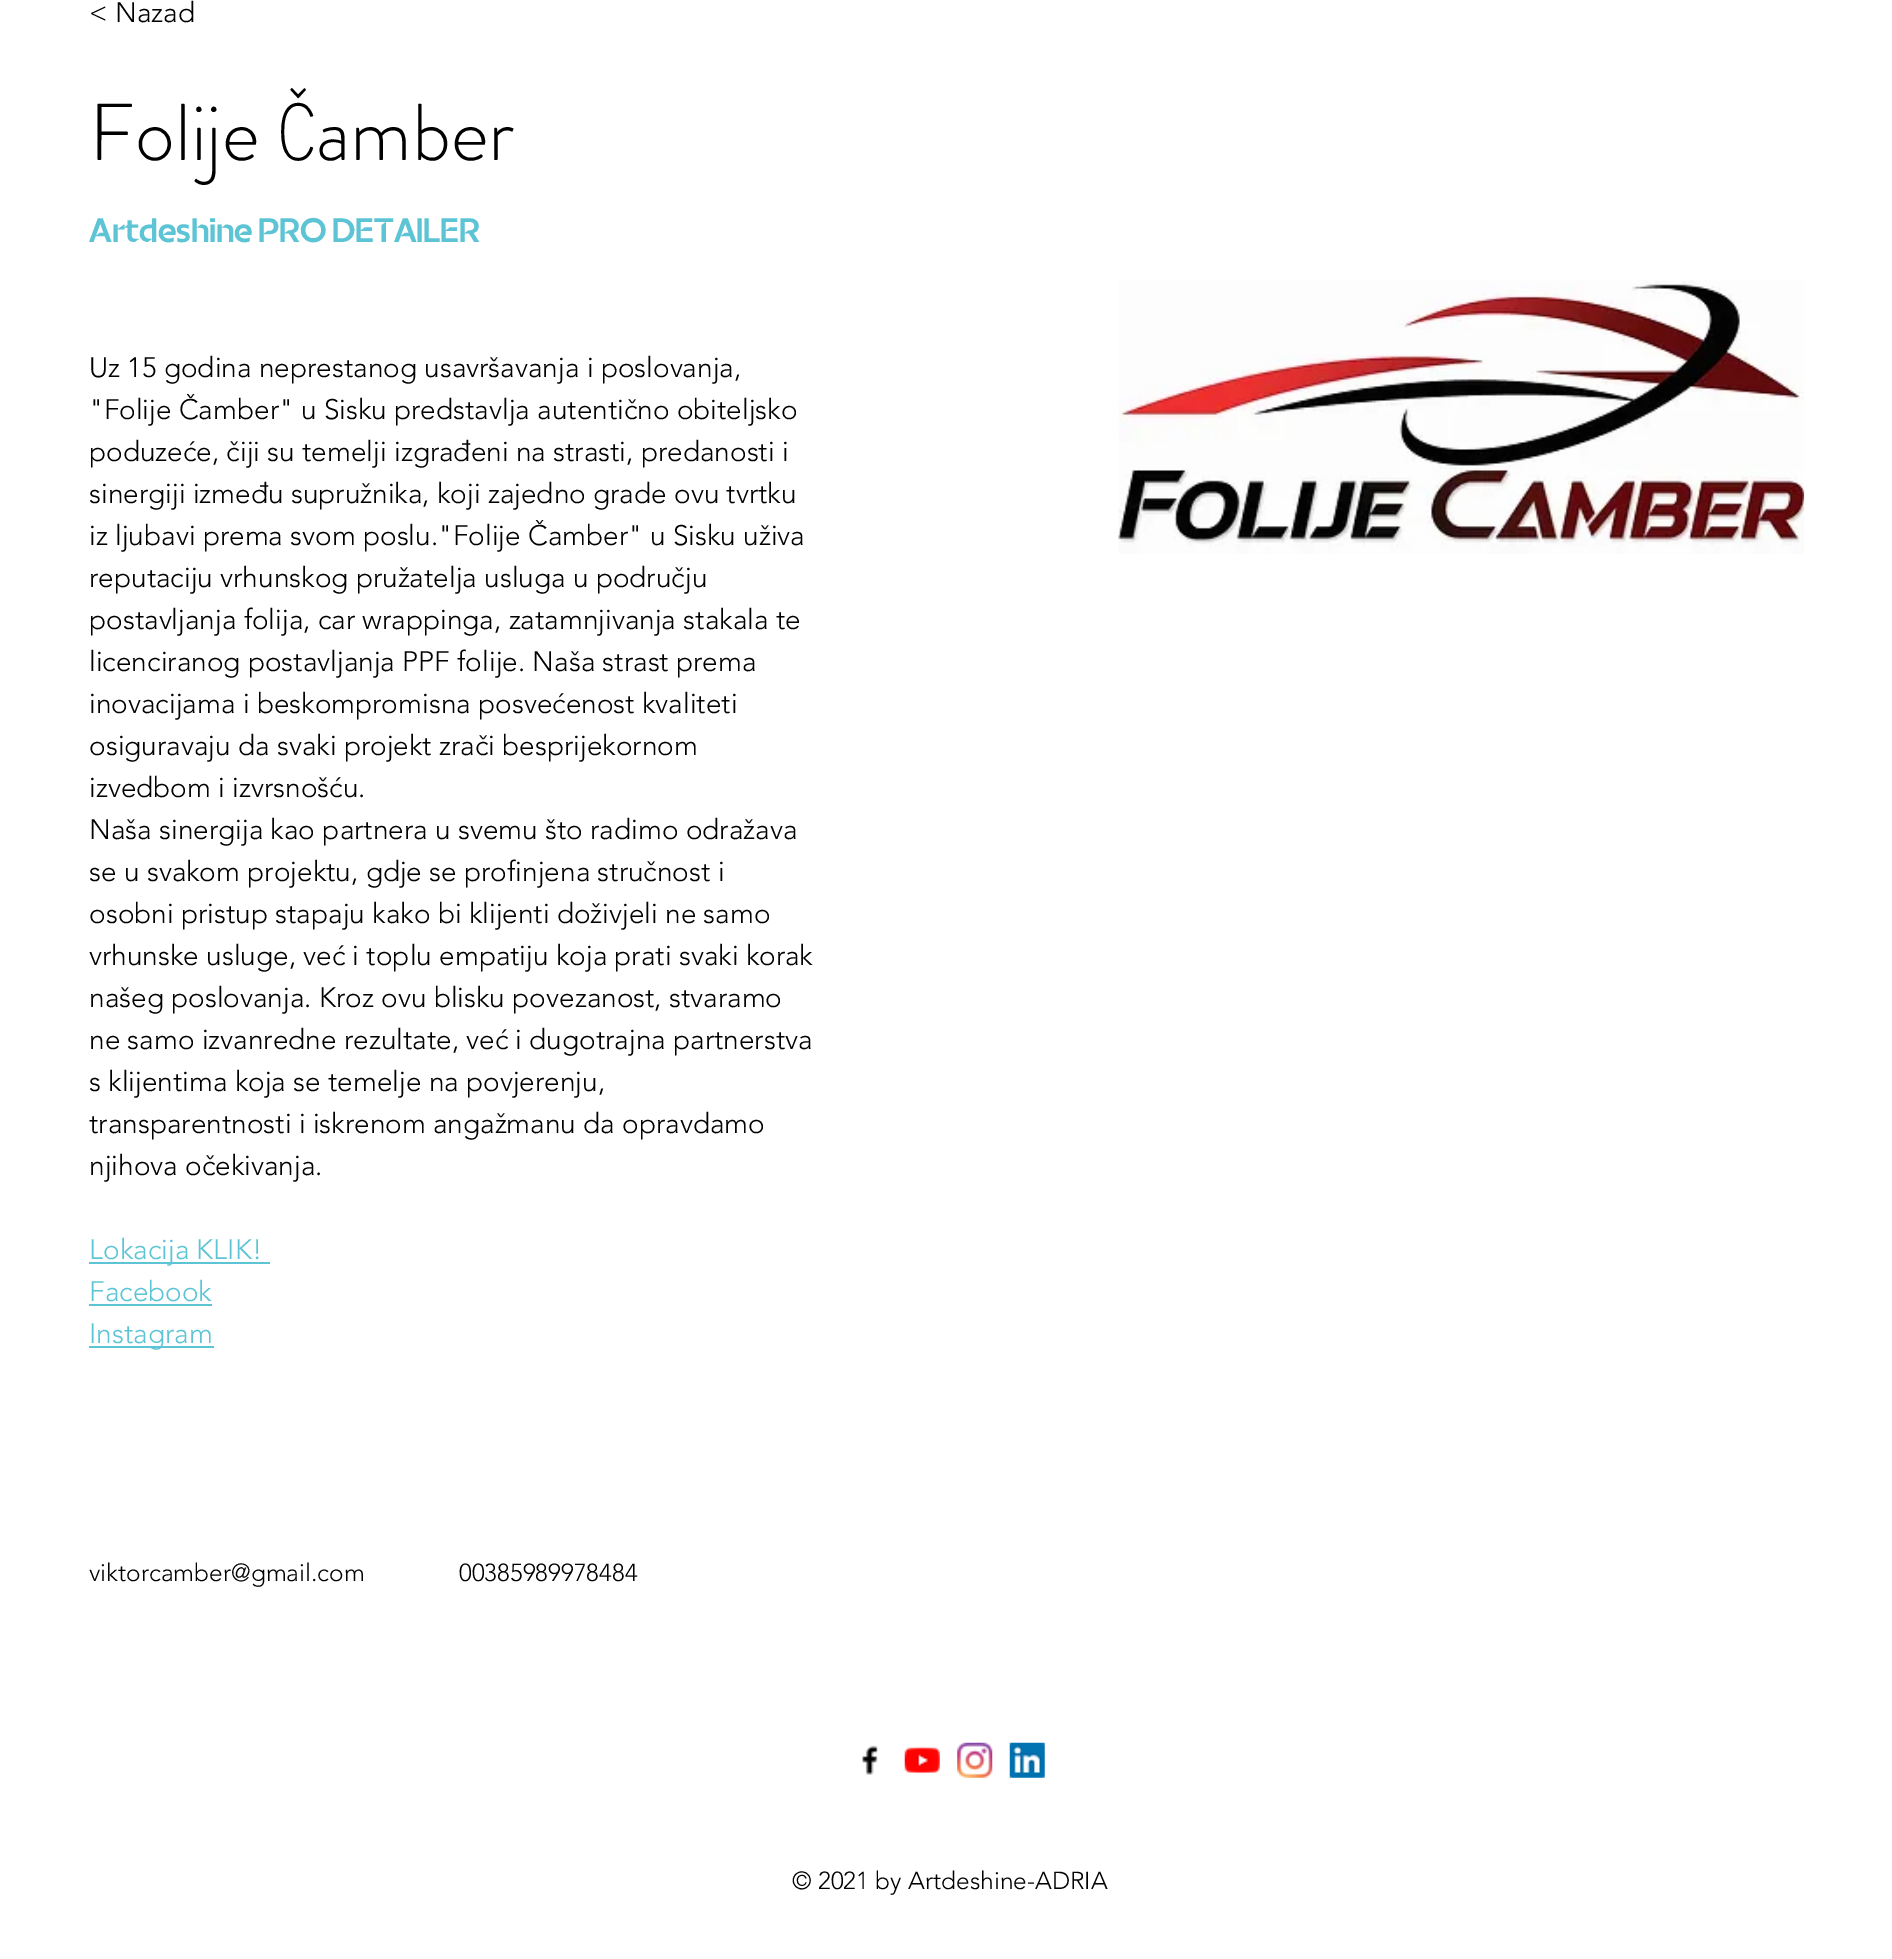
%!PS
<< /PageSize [1892 1959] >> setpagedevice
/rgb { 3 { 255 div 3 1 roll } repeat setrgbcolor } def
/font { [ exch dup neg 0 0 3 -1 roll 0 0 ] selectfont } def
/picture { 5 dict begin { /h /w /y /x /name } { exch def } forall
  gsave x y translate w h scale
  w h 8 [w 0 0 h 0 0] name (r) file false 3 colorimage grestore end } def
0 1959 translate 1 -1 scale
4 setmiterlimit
255 255 255 rgb
0 0 1892 1959 rectfill
[
  [89 1262 181 2 92 196 212]
  [89 1304 123 2 92 196 212]
  [89 1346 125 2 92 196 212]
] { aload pop rgb rectfill } forall
(img/1.rgb) 1118 280 687 274 picture
(img/2.rgb) 862 1745 16 30 picture
(img/3.rgb) 904 1746 36 28 picture
(img/4.rgb) 957 1742 36 36 picture
(img/5.rgb) 1009 1742 36 36 picture
/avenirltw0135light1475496-Light 28 font
0 0 0 rgb
89 22 moveto (< Nazad) show
/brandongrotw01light-Light 80.5 font
89 160 moveto (Folije Čamber) show
/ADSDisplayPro-Medium 35 font
92 196 212 rgb
89 242 moveto (Artdeshine PRO DETAILER) show
/avenirltw0135light1475496-Light 28 font
0 0 0 rgb
[
  [(Uz 15 godina neprestanog usavršavanja i poslovanja,) 89 377]
  [("Folije Čamber" u Sisku predstavlja autentično obiteljsko) 89 419]
  [(poduzeće, čiji su temelji izgrađeni na strasti, predanosti i) 89 461]
  [(sinergiji između supružnika, koji zajedno grade ovu tvrtku) 89 503]
  [(iz ljubavi prema svom poslu."Folije Čamber" u Sisku uživa) 89 545]
  [(reputaciju vrhunskog pružatelja usluga u području) 89 587]
  [(postavljanja folija, car wrappinga, zatamnjivanja stakala te) 89 629]
  [(licenciranog postavljanja PPF folije. Naša strast prema) 89 671]
  [(inovacijama i beskompromisna posvećenost kvaliteti) 89 713]
  [(osiguravaju da svaki projekt zrači besprijekornom) 89 755]
  [(izvedbom i izvrsnošću.) 89 797]
  [(Naša sinergija kao partnera u svemu što radimo odražava) 89 839]
  [(se u svakom projektu, gdje se profinjena stručnost i) 89 881]
  [(osobni pristup stapaju kako bi klijenti doživjeli ne samo) 89 923]
  [(vrhunske usluge, već i toplu empatiju koja prati svaki korak) 89 965]
  [(našeg poslovanja. Kroz ovu blisku povezanost, stvaramo) 89 1007]
  [(ne samo izvanredne rezultate, već i dugotrajna partnerstva) 89 1049]
  [(s klijentima koja se temelje na povjerenju,) 89 1091]
  [(transparentnosti i iskrenom angažmanu da opravdamo) 89 1133]
  [(njihova očekivanja.) 89 1175]
] { aload pop moveto show } forall
92 196 212 rgb
[
  [(Lokacija KLIK!) 89 1259]
  [(Facebook) 89 1301]
  [(Instagram) 89 1343]
] { aload pop moveto show } forall
/avenirltw0135light1475496-Light 24.5 font
0 0 0 rgb
[
  [(viktorcamber@gmail.com) 89 1581]
  [(00385989978484) 459 1581]
  [(© 2021 by Artdeshine-ADRIA) 792 1889]
] { aload pop moveto show } forall
showpage
